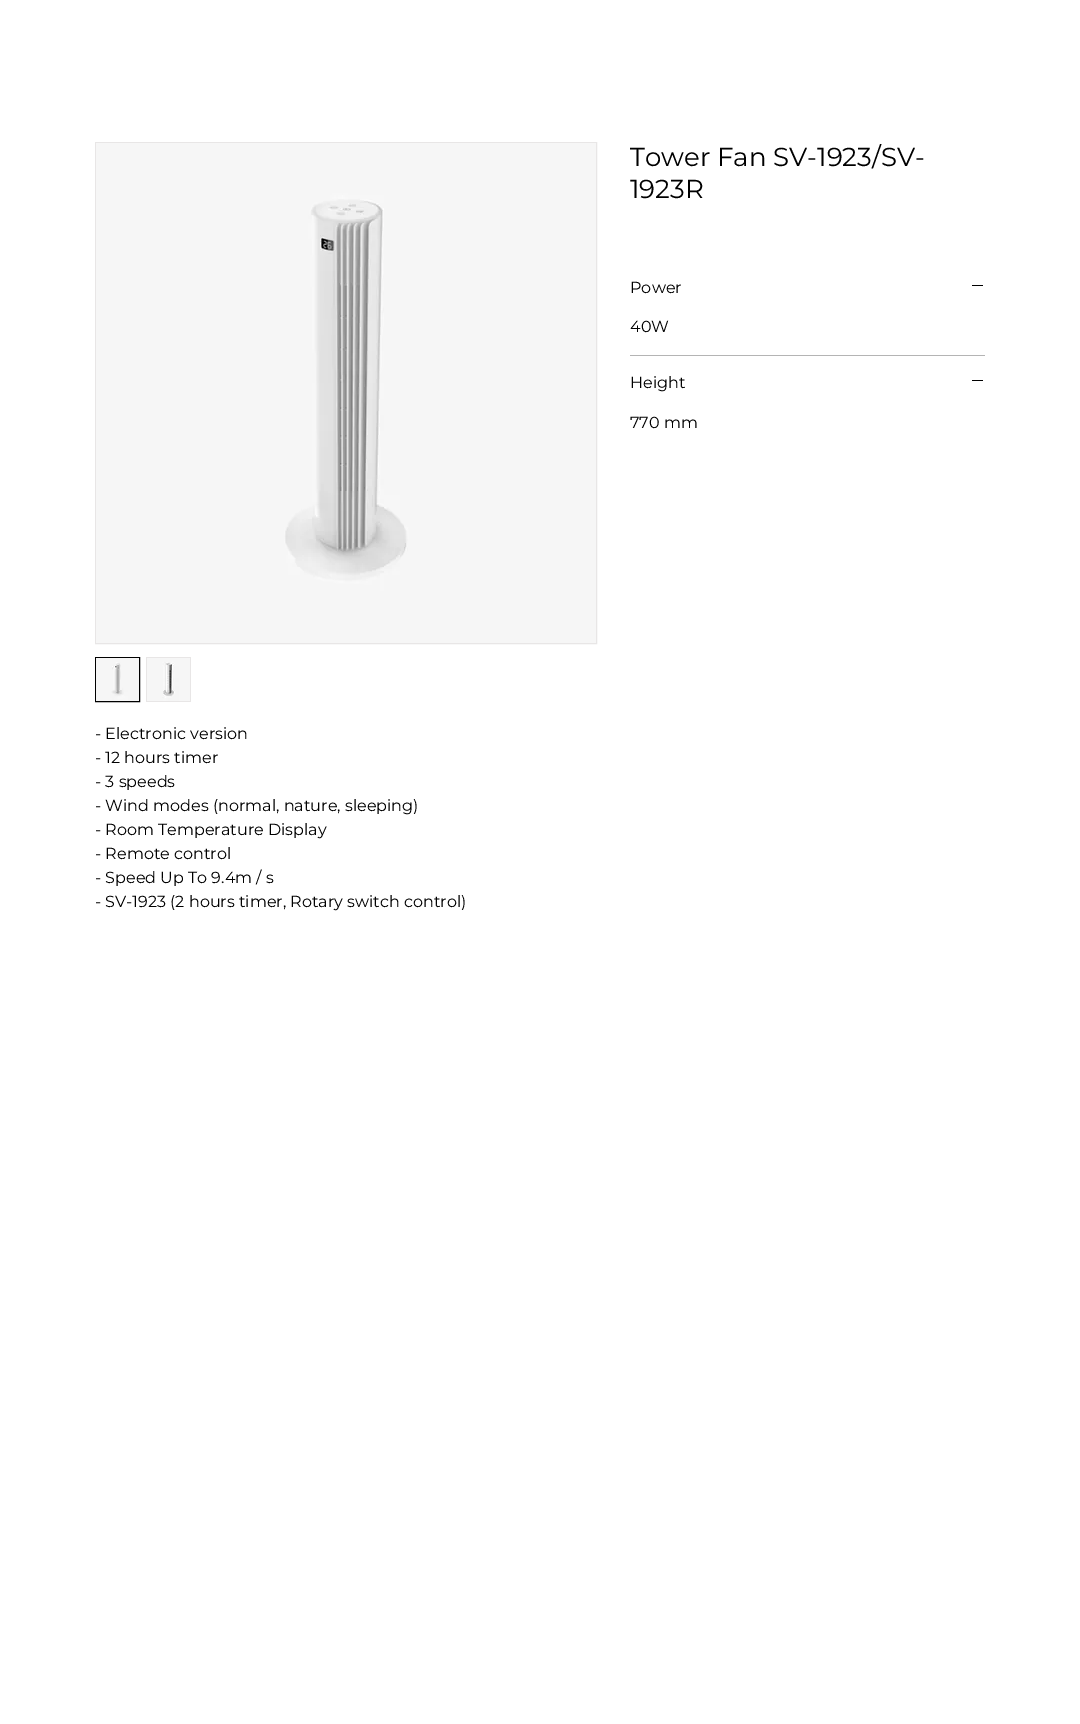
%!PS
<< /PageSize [1080 1724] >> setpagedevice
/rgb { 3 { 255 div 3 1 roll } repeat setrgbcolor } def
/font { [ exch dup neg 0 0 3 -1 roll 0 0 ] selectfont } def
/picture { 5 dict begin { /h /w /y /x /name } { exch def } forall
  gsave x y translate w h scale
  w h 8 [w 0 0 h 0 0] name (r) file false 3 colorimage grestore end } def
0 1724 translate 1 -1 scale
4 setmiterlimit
255 255 255 rgb
0 0 1080 1724 rectfill
[
  [630 355 355 1 180 180 180]
  [972 285 11 1 0 0 0]
  [972 380 11 1 0 0 0]
] { aload pop rgb rectfill } forall
232 230 230 rgb
95.5 142.5 501 501 rectstroke
(img/1.rgb) 96 143 500 500 picture
0 0 0 rgb
95.5 657.5 44 44 rectstroke
(img/2.rgb) 96 658 43 43 picture
232 230 230 rgb
146 657 45 45 rectfill
(img/3.rgb) 147 658 43 43 picture
/Montserrat-Regular 26 font
0 0 0 rgb
630 166 moveto (Tower Fan SV-1923/SV-) show
630 198 moveto (1923R) show
/Montserrat-Regular 16 font
[
  [(Power) 630 293]
  [(40W) 630 332]
  [(Height) 630 388]
  [(770 mm) 630 428]
  [(- Electronic version) 95 739]
  [(- 12 hours timer) 95 763]
  [(- 3 speeds) 95 787]
  [(- Wind modes \(normal, nature, sleeping\)) 95 811]
  [(- Room Temperature Display) 95 835]
  [(- Remote control) 95 859]
  [(- Speed Up To 9.4m / s) 95 883]
  [(- SV-1923 \(2 hours timer, Rotary switch control\)) 95 907]
] { aload pop moveto show } forall
showpage
